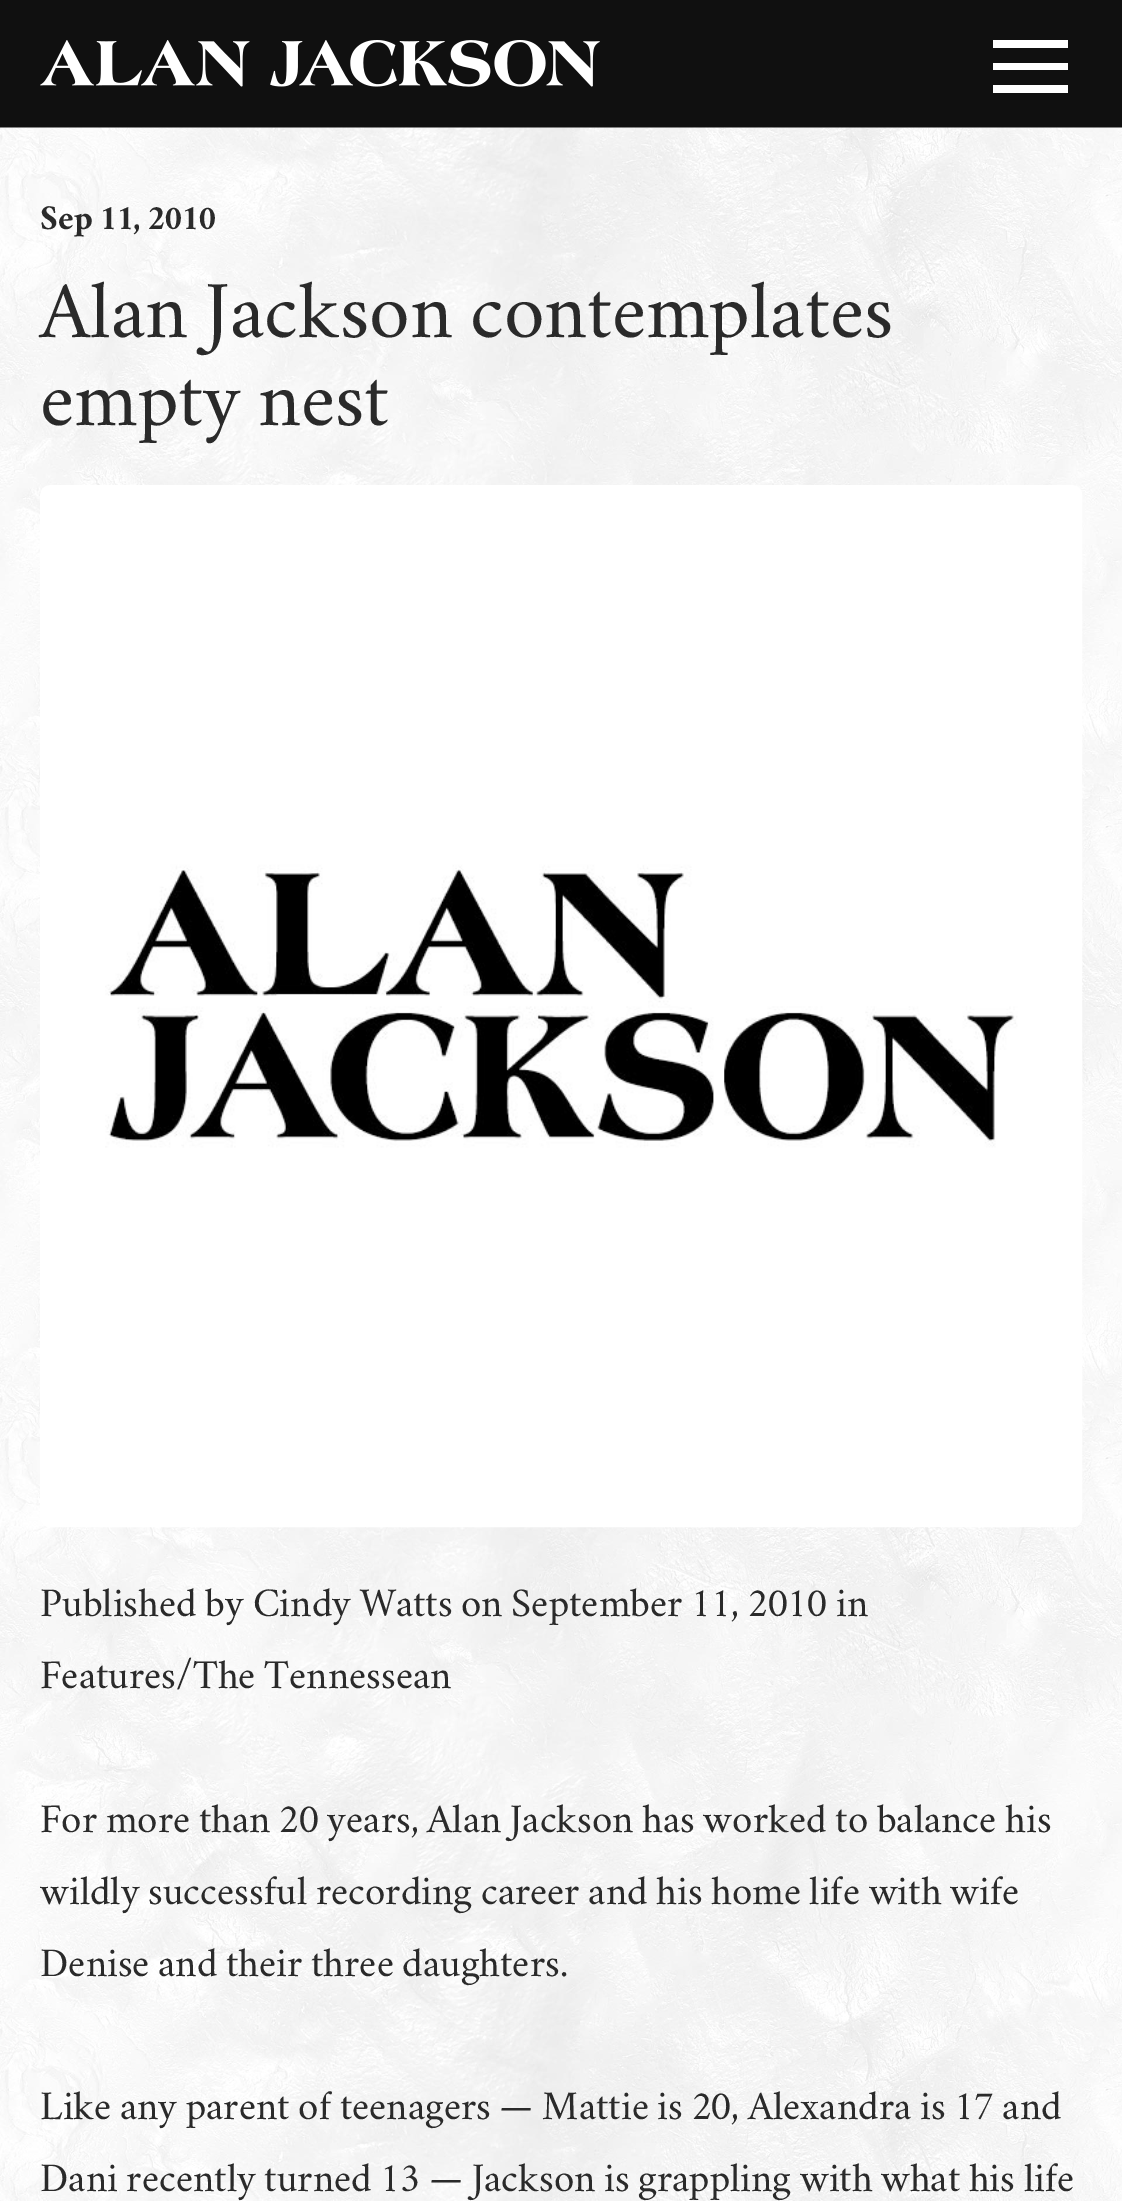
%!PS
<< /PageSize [1122 2201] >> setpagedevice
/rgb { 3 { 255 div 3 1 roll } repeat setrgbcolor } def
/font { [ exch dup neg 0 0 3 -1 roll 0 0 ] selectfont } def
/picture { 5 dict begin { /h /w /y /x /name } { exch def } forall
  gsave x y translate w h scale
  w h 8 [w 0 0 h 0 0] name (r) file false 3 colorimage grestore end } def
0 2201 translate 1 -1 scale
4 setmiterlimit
16 16 16 rgb
0 0 1122 2201 rectfill
(img/1.rgb) 40 40 560 47 picture
[
  [993 40 75 8 255 255 255]
  [993 63 75 7 255 255 255]
  [993 85 75 8 255 255 255]
] { aload pop rgb rectfill } forall
(img/2.rgb) 0 127 1122 2074 picture
(img/3.rgb) 40 485 1043 1043 picture
/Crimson-Bold 35 font
42 42 42 rgb
40 229 moveto (Sep 11, 2010) show
/Crimson-Regular 80 font
40 337 moveto (Alan Jackson contemplates) show
40 425 moveto (empty nest) show
/Crimson-Regular 40 font
[
  [(Published by Cindy Watts on September 11, 2010 in) 40 1616]
  [(Features/The Tennessean) 40 1688]
  [(For more than 20 years, Alan Jackson has worked to balance his) 40 1832]
  [(wildly successful recording career and his home life with wife) 40 1904]
  [(Denise and their three daughters.) 40 1976]
  [(Like any parent of teenagers — Mattie is 20, Alexandra is 17 and) 40 2119]
  [(Dani recently turned 13 — Jackson is grappling with what his life) 40 2191]
] { aload pop moveto show } forall
showpage
